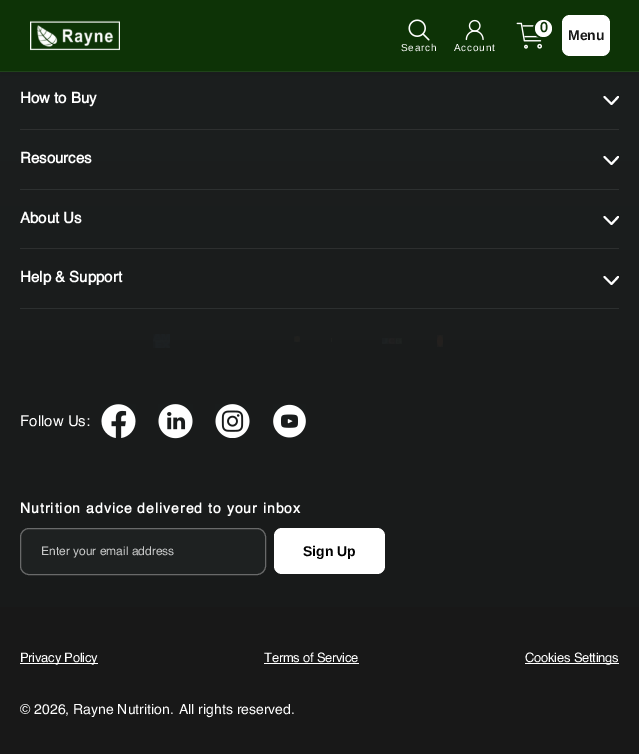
%!PS
<< /PageSize [639 754] /PageUsesTransparency true >> setpagedevice
/rgb { 3 { 255 div 3 1 roll } repeat setrgbcolor } def
/font { [ exch dup neg 0 0 3 -1 roll 0 0 ] selectfont } def
/alpha { dup .setfillconstantalpha .setstrokeconstantalpha } def
/circle { newpath 0 360 arc closepath } def
/roundrect { 5 dict begin { /r /h /w /y /x } { exch def } forall
  x r add y moveto x w add y 2 copy h add r arct x w add y h add x 1 index r arct
  x y h add x y r arct x y 2 copy exch w add exch r arct closepath end } def
/shadow { 12 dict begin { /a /b /q /h /w /y /x } { exch def } forall gsave /was 0 def
  9 -2 -9 { dup b mul 4 div /e exch def 1 sub .425 mul 2.718 exch exp 1 add a .99 .min exch div /now exch def
    1 1 now sub 1 was sub div sub alpha /was now def
    w h .min e 2 mul add 0 gt { x e sub y e sub w e 2 mul add h e 2 mul add
      q e add b .6 mul add w h .min 2 div e add .min 0 .max roundrect fill } if } for grestore end } def
/picture { 5 dict begin { /h /w /y /x /name } { exch def } forall
  gsave x y translate w h scale
  w h 8 [w 0 0 h 0 0] name (r) file false 3 colorimage grestore end } def
0 .pushpdf14devicefilter
0 754 translate 1 -1 scale
4 setmiterlimit
255 255 255 rgb
0 0 639 754 rectfill
gsave 0 72 moveto 639 72 lineto 639 607 lineto 0 607 lineto closepath clip newpath
<< /ShadingType 2 /ColorSpace /DeviceRGB /Coords [320 607 320 -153] /Extend [true true] /Function << /FunctionType 3 /Domain [0 1] /Functions [<< /FunctionType 2 /Domain [0 1] /C0 [0.094 0.102 0.102] /C1 [0.094 0.102 0.102] /N 1 >> << /FunctionType 2 /Domain [0 1] /C0 [0.094 0.102 0.102] /C1 [0.118 0.129 0.129] /N 1 >>] /Bounds [0.04] /Encode [0 1 0 1] >> >> shfill grestore
0 0 0 rgb
0 1 639 72 0 5 0.15 shadow
13 51 6 rgb
0 0 639 71 rectfill
32 67 26 rgb
0 71 639 1 rectfill
(img/1.rgb) 30 20 90 31 picture
(img/2.rgb) 516 22 26 27 picture
13 51 6 rgb
2 setlinewidth
543.5 28.5 9.5 circle stroke
255 255 255 rgb
543.5 28.5 8.5 circle fill
(img/3.rgb) 465 19 19 22 picture
562 15 48 41 8 roundrect fill
(img/4.rgb) 408 19 22 22 picture
46 48 48 rgb
20 129 599 1 rectfill
255 255 255 rgb
1 setlinecap
1 setlinejoin
604.5 97 moveto 611.5 104 lineto 618 97 lineto stroke
45 48 48 rgb
20 189 599 1 rectfill
255 255 255 rgb
604.5 157 moveto 611.5 164 lineto 618 157 lineto stroke
45 47 47 rgb
20 248 599 1 rectfill
255 255 255 rgb
604.5 217 moveto 611.5 224 lineto 618 217 lineto stroke
44 47 47 rgb
20 308 599 1 rectfill
255 255 255 rgb
604.5 277 moveto 611.5 284 lineto 618 277 lineto stroke
(img/5.rgb) 153 334 17 14 picture
(img/6.rgb) 294 336 6 6 picture
(img/7.rgb) 331 338 1 4 picture
(img/8.rgb) 382 338 20 6 picture
(img/9.rgb) 437 335 6 12 picture
(img/10.rgb) 101 404 35 34 picture
(img/11.rgb) 158 404 35 35 picture
(img/12.rgb) 215 404 35 34 picture
(img/13.rgb) 273 404 33 34 picture
30 33 33 rgb
21 529 244 45 8 roundrect fill
105 106 106 rgb
1 setlinewidth
0 setlinecap
0 setlinejoin
20.5 528.5 245 46 8.5 roundrect stroke
255 255 255 rgb
274 528 111 46 8 roundrect fill
[
  [0 607 639 147 24 24 24]
  [20 663 78 1 255 255 255]
  [264 663 95 1 255 255 255]
  [525 663 94 1 255 255 255]
] { aload pop rgb rectfill } forall
/Helvetica-Bold 14 font
13 51 6 rgb
540 32 moveto (0) show
/LiberationSans-Regular 10 font
255 255 255 rgb
454 51 moveto 0.75 0 (Account) ashow
/LiberationSans-Bold 14 font
24 24 24 rgb
568 40 moveto (Menu) show
/LiberationSans-Regular 10 font
255 255 255 rgb
401 51 moveto 0.75 0 (Search) ashow
/Helvetica-Bold 15 font
[
  [(How to Buy) 20 103]
  [(Resources) 20 163]
  [(About Us) 20 223]
  [(Help & Support) 20 282]
] { aload pop moveto show } forall
/Helvetica-Regular 15 font
20 426 moveto (Follow Us:) show
/Helvetica-Bold 14 font
20 513 moveto 1 0 (Nutrition advice delivered to your inbox) ashow
/Helvetica-Regular 12 font
199 200 200 rgb
41 555 moveto (Enter your email address) show
/LiberationSans-Bold 14 font
0 0 0 rgb
303 556 moveto (Sign Up) show
/Helvetica-Regular 13 font
255 255 255 rgb
20 662 moveto -0.25 0 (Privacy Policy) ashow
264 662 moveto -0.25 0 (Terms of Service) ashow
525 662 moveto -0.25 0 (Cookies Settings) ashow
/Helvetica-Regular 14 font
20 714 moveto (© 2026, Rayne Nutrition.) show
179 714 moveto (All rights reserved.) show
.poppdf14devicefilter showpage
